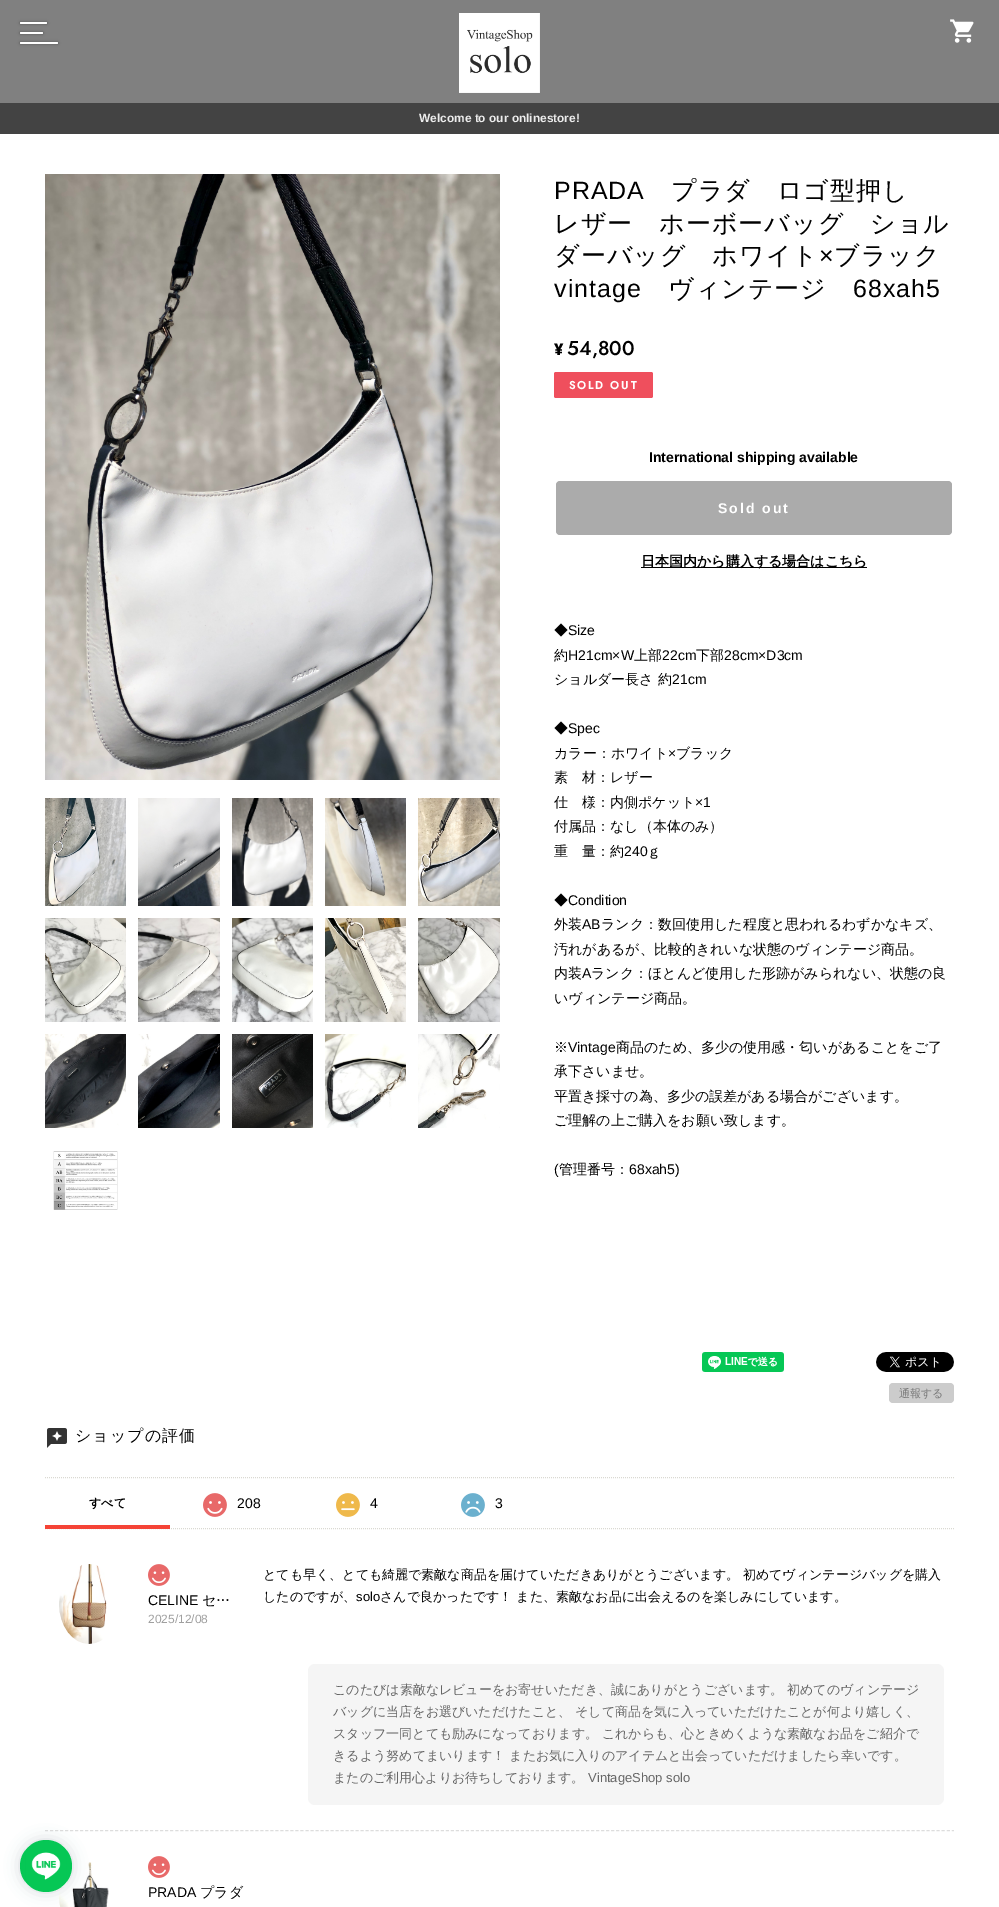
%!PS
<< /PageSize [999 1907] /PageUsesTransparency true >> setpagedevice
/rgb { 3 { 255 div 3 1 roll } repeat setrgbcolor } def
/font { [ exch dup neg 0 0 3 -1 roll 0 0 ] selectfont } def
/alpha { dup .setfillconstantalpha .setstrokeconstantalpha } def
/circle { newpath 0 360 arc closepath } def
/roundrect { 5 dict begin { /r /h /w /y /x } { exch def } forall
  x r add y moveto x w add y 2 copy h add r arct x w add y h add x 1 index r arct
  x y h add x y r arct x y 2 copy exch w add exch r arct closepath end } def
/shadow { 12 dict begin { /a /b /q /h /w /y /x } { exch def } forall gsave /was 0 def
  9 -2 -9 { dup b mul 4 div /e exch def 1 sub .425 mul 2.718 exch exp 1 add a .99 .min exch div /now exch def
    1 1 now sub 1 was sub div sub alpha /was now def
    w h .min e 2 mul add 0 gt { x e sub y e sub w e 2 mul add h e 2 mul add
      q e add b .6 mul add w h .min 2 div e add .min 0 .max roundrect fill } if } for grestore end } def
/picture { 5 dict begin { /h /w /y /x /name } { exch def } forall
  gsave x y translate w h scale
  w h 8 [w 0 0 h 0 0] name (r) file false 3 colorimage grestore end } def
0 .pushpdf14devicefilter
0 1907 translate 1 -1 scale
4 setmiterlimit
255 255 255 rgb
0 0 999 1907 rectfill
128 128 128 rgb
0 0 999 103 rectfill
0 0 0 rgb
20 32 23 2 1 1.5 0.3 shadow
255 255 255 rgb
20 32 23 2 1 roundrect fill
0 0 0 rgb
20 22 27 2 1 1.5 0.3 shadow
255 255 255 rgb
20 22 27 2 1 roundrect fill
0 0 0 rgb
20 42 38 2 1 1.5 0.3 shadow
255 255 255 rgb
20 42 38 2 1 roundrect fill
(img/1.rgb) 459 13 81 80 picture
67 67 67 rgb
0 103 999 31 rectfill
(img/2.rgb) 950 19 24 24 picture
221 221 221 rgb
[3 2.01] 0 setdash
45 1830.5 moveto 954 1830.5 lineto stroke
(img/29.rgb) 59 1862 50 45 picture
51 66 88 rgb
20 1840 52 52 26 7.5 0.2 shadow
6 199 85 rgb
46 1866 26 circle fill
(img/3.rgb) 25 1845 42 42 picture
(img/4.rgb) 45 174 455 606 picture
(img/5.rgb) 45 798 81 108 picture
(img/6.rgb) 138 798 82 108 picture
(img/7.rgb) 232 798 81 108 picture
(img/8.rgb) 325 798 81 108 picture
(img/9.rgb) 418 798 82 108 picture
(img/10.rgb) 45 918 81 104 picture
(img/11.rgb) 138 918 82 104 picture
(img/12.rgb) 232 918 81 104 picture
(img/13.rgb) 325 918 81 104 picture
(img/14.rgb) 418 918 82 104 picture
(img/15.rgb) 45 1034 81 94 picture
(img/16.rgb) 138 1034 82 94 picture
(img/17.rgb) 232 1034 81 94 picture
(img/18.rgb) 325 1034 81 94 picture
(img/19.rgb) 418 1034 82 94 picture
(img/20.rgb) 53 1151 65 59 picture
239 79 93 rgb
554 372 99 26 2 roundrect fill
171 171 171 rgb
556 481 396 54 4 roundrect fill
0 0 0 rgb
641 567 226 1 rectfill
(img/21.rgb) 702 1352 82 20 picture
(img/22.rgb) 876 1352 78 20 picture
204 204 204 rgb
889 1383 65 20 4 roundrect fill
(img/23.rgb) 47 1428 20 20 picture
218 217 210 rgb
[1 1] 0 setdash
45 1477.5 moveto 954 1477.5 lineto stroke
45 1528.5 moveto 954 1528.5 lineto stroke
(img/24.rgb) 203 1493 24 24 picture
(img/25.rgb) 336 1493 24 24 picture
(img/26.rgb) 461 1493 24 24 picture
245 67 54 rgb
45 1525 125 4 rectfill
(img/27.rgb) 59 1564 48 80 picture
(img/28.rgb) 148 1564 22 22 picture
245 245 245 rgb
308 1664 636 141 7 roundrect fill
(img/28.rgb) 148 1856 22 22 picture
/LiberationSans-Bold 11.9 font
236 236 236 rgb
419 122 moveto (Welcome to our onlinestore!) show
/LiberationSans-Regular 25 font
0 0 0 rgb
554 199 moveto 1 0 (PRADA) ashow
/WenQuanYiZenHei-Medium 25 font
671 199 moveto 1 0 (プラダ　ロゴ型押し) ashow
554 232 moveto 1 0 (レザー　ホーボーバッグ　ショル) ashow
554 264 moveto 1 0 (ダーバッグ　ホワイト) ashow
/LiberationSans-Regular 25 font
819 264 moveto 1 0 (×) ashow
/WenQuanYiZenHei-Medium 25 font
834 264 moveto 1 0 (ブラック) ashow
/LiberationSans-Regular 25 font
554 297 moveto 1 0 (vintage) ashow
/WenQuanYiZenHei-Medium 25 font
668 297 moveto 1 0 (ヴィンテージ) ashow
/LiberationSans-Regular 25 font
853 297 moveto 1 0 (68xah5) ashow
/NotoSans-Black 16 font
554 355 moveto (¥) show
/Jost-Medium 20 font
567 355 moveto (54,800) show
/Jost-Bold 11 font
255 255 255 rgb
569 389 moveto 2 0 (SOLD OUT) ashow
/LiberationSans-Bold 14 font
0 0 0 rgb
649 462 moveto (International shipping available) show
255 255 255 rgb
718 513 moveto 2 0 (Sold out) ashow
/WenQuanYiZenHei-Bold 14 font
0 0 0 rgb
641 566 moveto (日本国内から購入する場合はこちら) show
/WenQuanYiZenHei-Medium 14 font
554 635 moveto (◆) show
/LiberationSans-Regular 14 font
568 635 moveto (Size) show
/WenQuanYiZenHei-Medium 14 font
554 660 moveto (約) show
/LiberationSans-Regular 14 font
568 660 moveto (H21cm×W) show
/WenQuanYiZenHei-Medium 14 font
634 660 moveto (上部) show
/LiberationSans-Regular 14 font
662 660 moveto (22cm) show
/WenQuanYiZenHei-Medium 14 font
696 660 moveto (下部) show
/LiberationSans-Regular 14 font
724 660 moveto (28cm×D3cm) show
/WenQuanYiZenHei-Medium 14 font
554 684 moveto (ショルダー長さ 約) show
/LiberationSans-Regular 14 font
672 684 moveto (21cm) show
/WenQuanYiZenHei-Medium 14 font
554 733 moveto (◆) show
/LiberationSans-Regular 14 font
568 733 moveto (Spec) show
/WenQuanYiZenHei-Medium 14 font
554 758 moveto (カラー：ホワイト) show
/LiberationSans-Regular 14 font
668 758 moveto (×) show
/WenQuanYiZenHei-Medium 14 font
[
  [(ブラック) 676 758]
  [(素　材：レザー) 554 782]
  [(仕　様：内側ポケット) 554 807]
] { aload pop moveto show } forall
/LiberationSans-Regular 14 font
695 807 moveto (×1) show
/WenQuanYiZenHei-Medium 14 font
554 831 moveto (付属品：なし（本体のみ）) show
554 856 moveto (重　量：約) show
/LiberationSans-Regular 14 font
624 856 moveto (240) show
/WenQuanYiZenHei-Medium 14 font
647 856 moveto (ｇ) show
554 905 moveto (◆) show
/LiberationSans-Regular 14 font
568 905 moveto (Condition) show
/WenQuanYiZenHei-Medium 14 font
554 929 moveto (外装) show
/LiberationSans-Regular 14 font
582 929 moveto (AB) show
/WenQuanYiZenHei-Medium 14 font
[
  [(ランク：数回使用した程度と思われるわずかなキズ、) 601 929]
  [(汚れがあるが、比較的きれいな状態のヴィンテージ商品。) 554 954]
  [(内装) 554 978]
] { aload pop moveto show } forall
/LiberationSans-Regular 14 font
582 978 moveto (A) show
/WenQuanYiZenHei-Medium 14 font
[
  [(ランク：ほとんど使用した形跡がみられない、状態の良) 591 978]
  [(いヴィンテージ商品。) 554 1003]
  [(※) 554 1052]
] { aload pop moveto show } forall
/LiberationSans-Regular 14 font
568 1052 moveto (Vintage) show
/WenQuanYiZenHei-Medium 14 font
[
  [(商品のため、多少の使用感・匂いがあることをご了) 616 1052]
  [(承下さいませ。) 554 1076]
  [(平置き採寸の為、多少の誤差がある場合がございます。) 554 1101]
  [(ご理解の上ご購入をお願い致します。) 554 1125]
] { aload pop moveto show } forall
/LiberationSans-Regular 14 font
554 1174 moveto (\() show
/WenQuanYiZenHei-Medium 14 font
559 1174 moveto (管理番号：) show
/LiberationSans-Regular 14 font
629 1174 moveto (68xah5\)) show
/WenQuanYiZenHei-Medium 11 font
120 120 120 rgb
899 1397 moveto (通報する) show
/WenQuanYiZenHei-Medium 16 font
0 0 0 rgb
75 1441 moveto 1 0 (ショップの評価) ashow
/WenQuanYiZenHei-Bold 12 font
89 1507 moveto (すべて) show
/LiberationSans-Regular 14 font
[
  [(208) 237 1508]
  [(4) 370 1508]
  [(3) 495 1508]
] { aload pop moveto show } forall
/WenQuanYiZenHei-Medium 13 font
263 1579 moveto (とても早く、とても綺麗で素敵な商品を届けていただきありがとうございます。 初めてヴィンテージバッグを購入) show
263 1601 moveto (したのですが、) show
/LiberationSans-Regular 13 font
356 1601 moveto (solo) show
/WenQuanYiZenHei-Medium 13 font
380 1601 moveto (さんで良かったです！ また、素敵なお品に出会えるのを楽しみにしています。) show
/LiberationSans-Regular 14 font
148 1605 moveto (CELINE) show
/WenQuanYiZenHei-Medium 14 font
202 1605 moveto (セ…) show
/LiberationSans-Regular 12 font
160 160 160 rgb
148 1623 moveto (2025/12/08) show
/WenQuanYiZenHei-Medium 13 font
102 102 102 rgb
[
  [(このたびは素敵なレビューをお寄せいただき、誠にありがとうございます。 初めてのヴィンテージ) 333 1694]
  [(バッグに当店をお選びいただけたこと、 そして商品を気に入っていただけたことが何より嬉しく、) 333 1716]
  [(スタッフ一同とても励みになっております。 これからも、心ときめくような素敵なお品をご紹介で) 333 1738]
  [(きるよう努めてまいります！ またお気に入りのアイテムと出会っていただけましたら幸いです。) 333 1760]
  [(またのご利用心よりお待ちしております。) 333 1782]
] { aload pop moveto show } forall
/LiberationSans-Regular 13 font
588 1782 moveto (VintageShop solo) show
/LiberationSans-Regular 14 font
0 0 0 rgb
148 1897 moveto (PRADA) show
/WenQuanYiZenHei-Medium 14 font
200 1897 moveto (プラダ) show
.poppdf14devicefilter showpage
